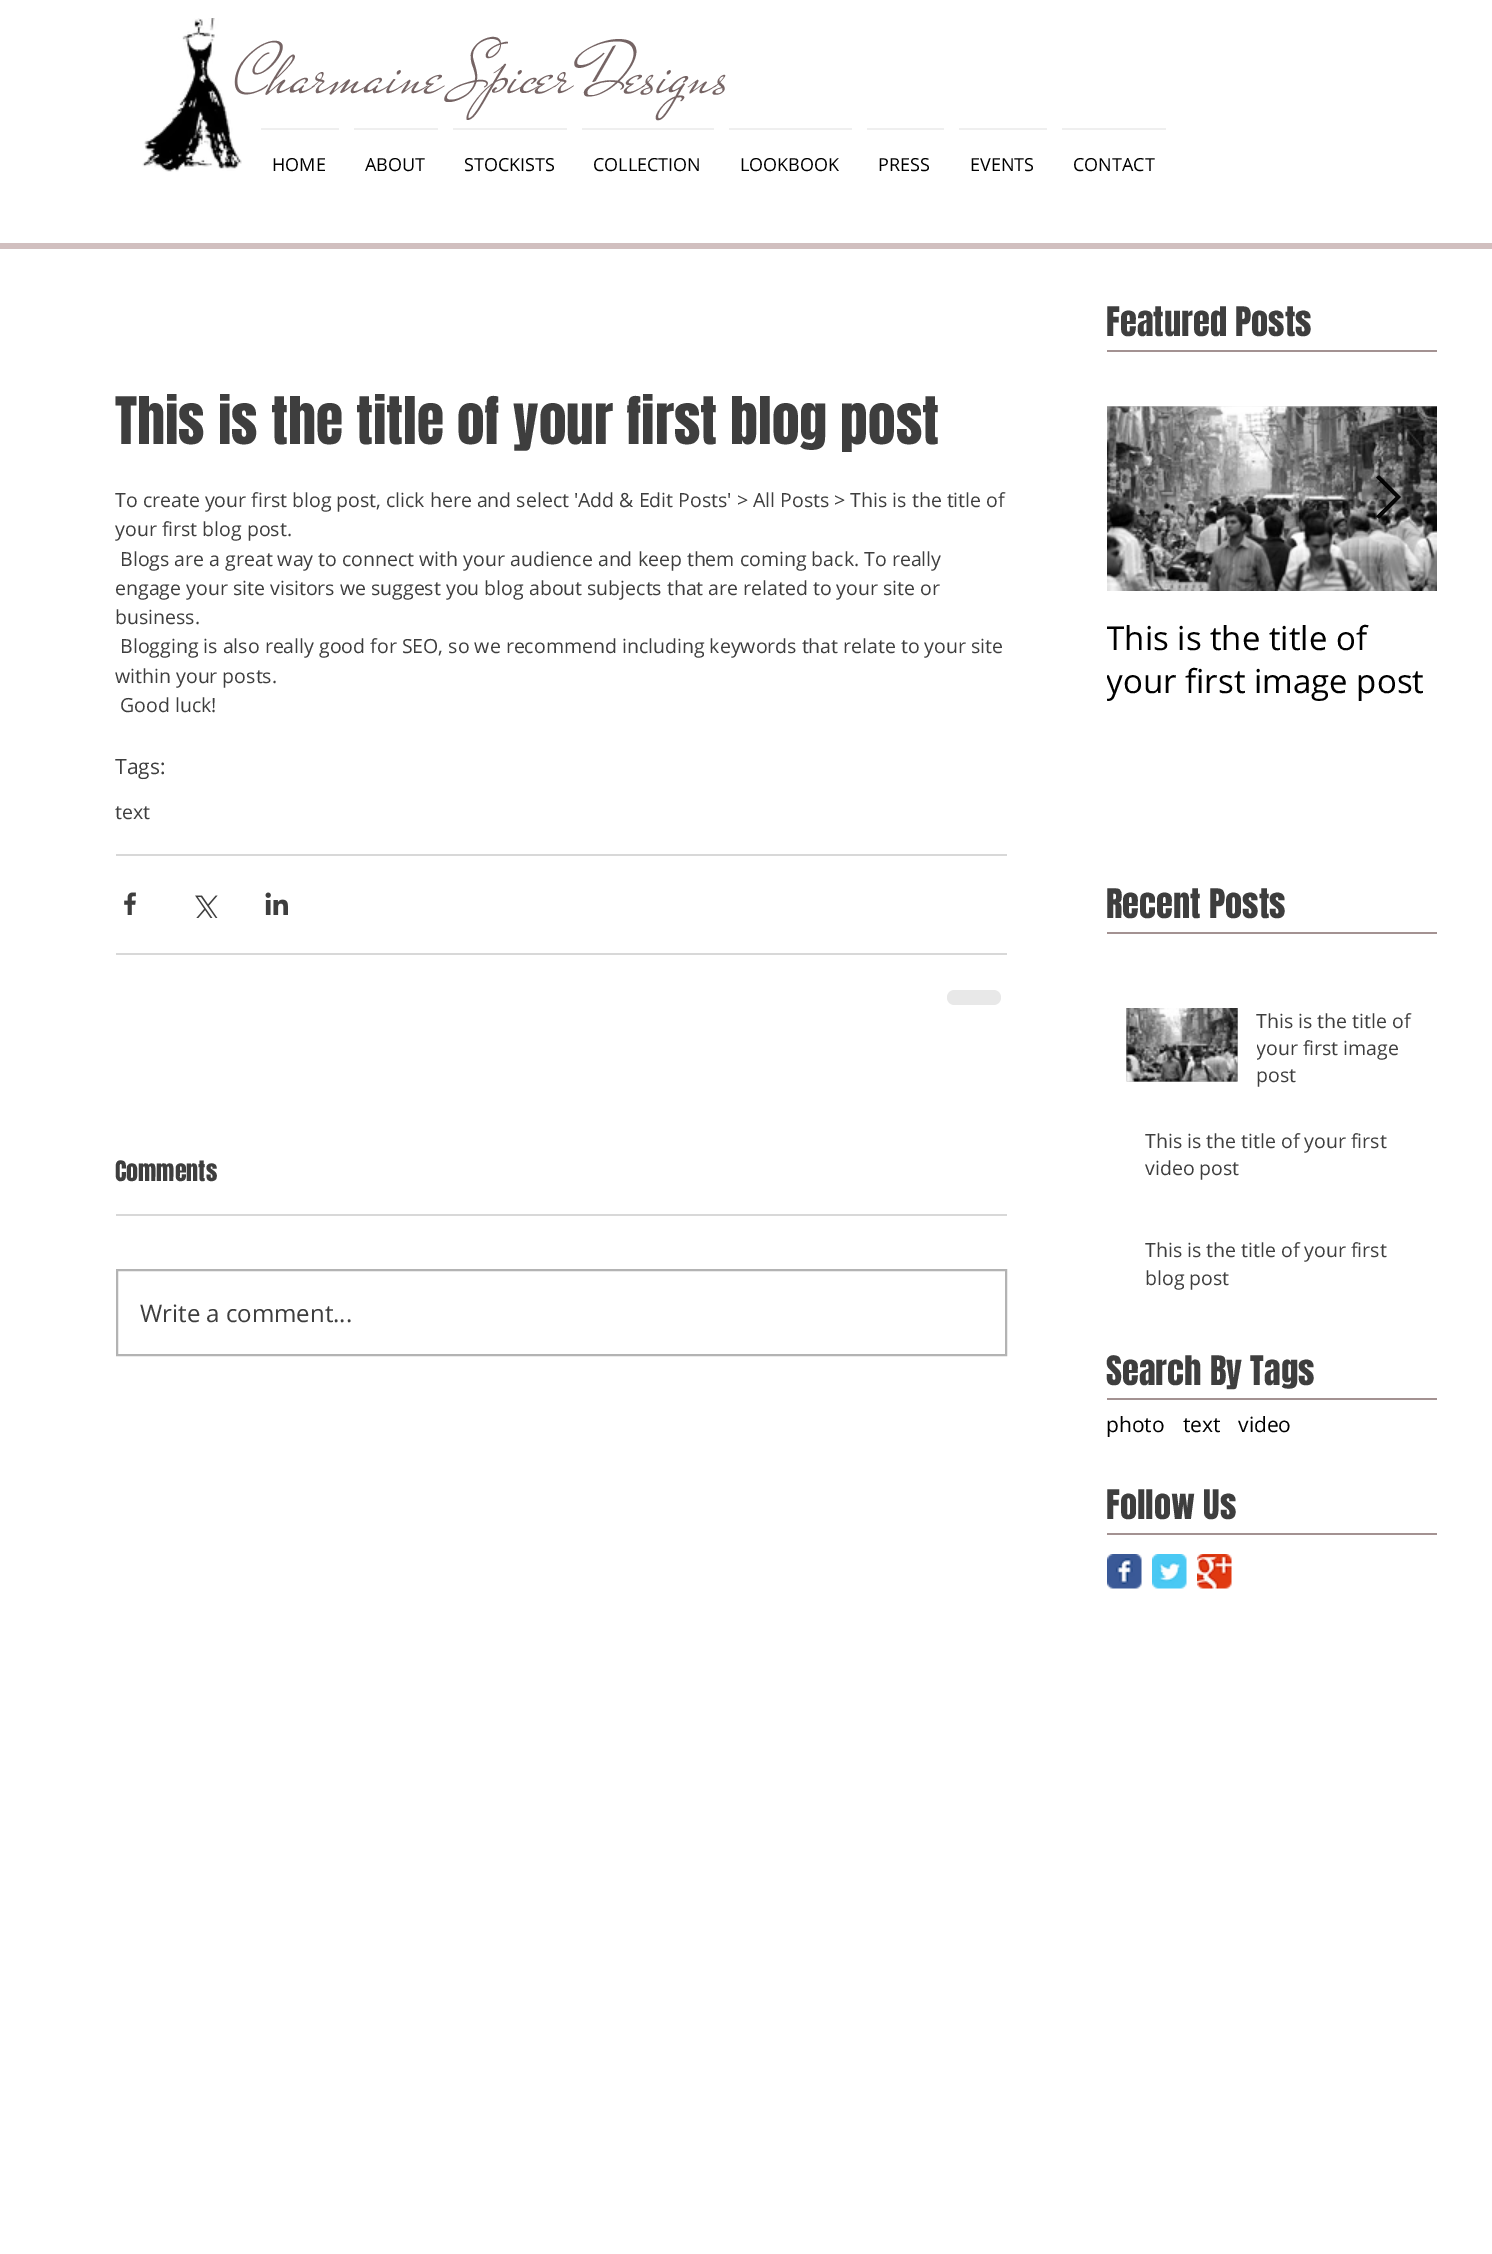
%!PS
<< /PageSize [1492 2254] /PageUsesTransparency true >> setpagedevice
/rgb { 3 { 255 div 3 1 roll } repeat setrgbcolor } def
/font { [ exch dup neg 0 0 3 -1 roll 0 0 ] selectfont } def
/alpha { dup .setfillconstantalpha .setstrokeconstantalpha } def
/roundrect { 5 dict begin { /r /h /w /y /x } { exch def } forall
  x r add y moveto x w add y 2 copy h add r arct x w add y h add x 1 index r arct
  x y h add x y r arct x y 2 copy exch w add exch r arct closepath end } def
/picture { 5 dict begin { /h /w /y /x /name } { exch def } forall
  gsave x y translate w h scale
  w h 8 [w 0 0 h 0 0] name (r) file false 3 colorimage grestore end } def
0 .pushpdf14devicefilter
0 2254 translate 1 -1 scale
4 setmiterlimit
255 255 255 rgb
0 0 1492 2254 rectfill
[
  [0 243 1492 6 209 191 191]
  [261 128 78 2 239 239 239]
  [354 128 84 2 239 239 239]
  [453 128 114 2 239 239 239]
  [582 128 132 2 239 239 239]
  [729 128 123 2 239 239 239]
  [867 128 77 2 239 239 239]
  [959 128 88 2 239 239 239]
  [1062 128 104 2 239 239 239]
  [1107 350 330 2 163 146 146]
  [116 854 891 2 216 216 216]
] { aload pop rgb rectfill } forall
(img/2.rgb) 124 892 12 23 picture
(img/3.rgb) 195 895 23 23 picture
(img/4.rgb) 265 892 23 23 picture
116 953 891 2 rectfill
232 232 232 rgb
947 990 54 15 7.5 roundrect fill
216 216 216 rgb
116 1214 891 2 rectfill
179 179 179 rgb
2 setlinewidth
117 1270 889 85 rectstroke
(img/5.rgb) 1107 406 330 1 picture
(img/6.rgb) 1107 406 330 185 picture
0.9 alpha
0 0 0 rgb
1377 478 moveto 1379 476 lineto 1400 497 lineto 1379 518 lineto 1377 516 lineto 1397 497 lineto closepath fill
1.2 setlinewidth
1377 477.5 moveto 1379 476 lineto 1400 497 lineto 1379 518 lineto 1377 516.5 lineto 1396.5 497 lineto closepath stroke
1 alpha
163 146 146 rgb
1107 932 330 2 rectfill
(img/7.rgb) 1126 1008 112 74 picture
(img/8.rgb) 1126 1008 112 74 picture
1107 1398 330 2 rectfill
1107 1533 330 2 rectfill
(img/9.rgb) 1107 1554 35 35 picture
(img/10.rgb) 1152 1554 35 35 picture
(img/11.rgb) 1197 1554 35 35 picture
/MrDeHaviland-Regular 72 font
117 100 100 rgb
235 92 moveto (Charmaine Spicer Designs) show
(img/1.rgb) 142 18 100 154 picture
/OpenSans-Regular 18 font
0 0 0 rgb
[
  [(HOME) 272 171]
  [(ABOUT) 365 171]
  [(STOCKISTS) 464 171]
  [(COLLECTION) 593 171]
  [(LOOKBOOK) 740 171]
  [(PRESS) 878 171]
  [(EVENTS) 970 171]
  [(CONTACT) 1073 171]
] { aload pop moveto show } forall
/Anton-Regular 34.5 font
62 62 62 rgb
1106 336 moveto (Featured Posts) show
/Anton-Regular 55.5 font
115 444 moveto (This is the title of your first blog post) show
/OpenSans-Regular 19.5 font
[
  [(To create your first blog post, click here and select 'Add & Edit Posts' > All Posts > This is the title of) 115 507]
  [(your first blog post.) 115 536]
  [(Blogs are a great way to connect with your audience and keep them coming back. To really) 120 566]
  [(engage your site visitors we suggest you blog about subjects that are related to your site or) 115 595]
  [(business.) 115 624]
  [(Blogging is also really good for SEO, so we recommend including keywords that relate to your site) 120 653]
  [(within your posts.) 115 683]
  [(Good luck!) 120 712]
] { aload pop moveto show } forall
/OpenSans-Regular 21 font
115 774 moveto (Tags:) show
/OpenSans-Regular 19.5 font
115 819 moveto (text) show
/Anton-Regular 24 font
115 1181 moveto (Comments) show
/OpenSans-Regular 24 font
140 1322 moveto (Write a comment...) show
gsave
1107 615 330 87 rectclip
/OpenSans-Regular 33 font
0 0 0 rgb
1106 650 moveto (This is the title of) show
1106 693 moveto (your first image post) show
grestore
/Anton-Regular 34.5 font
1106 918 moveto (Recent Posts) show
/OpenSans-Regular 19.5 font
1256 1028 moveto (This is the title of) show
gsave
1257 1007 162 82 rectclip
1256 1055 moveto (your first image) show
grestore
[
  [(post) 1256 1082]
  [(This is the title of your first) 1145 1148]
  [(video post) 1145 1175]
  [(This is the title of your first) 1145 1257]
  [(blog post) 1145 1285]
] { aload pop moveto show } forall
/Anton-Regular 34.5 font
1106 1385 moveto (Search By Tags) show
/OpenSans-Regular 21 font
0 0 0 rgb
[
  [(photo) 1106 1432]
  [(text) 1183 1432]
  [(video) 1238 1432]
] { aload pop moveto show } forall
/Anton-Regular 34.5 font
62 62 62 rgb
1106 1519 moveto (Follow Us) show
.poppdf14devicefilter showpage
